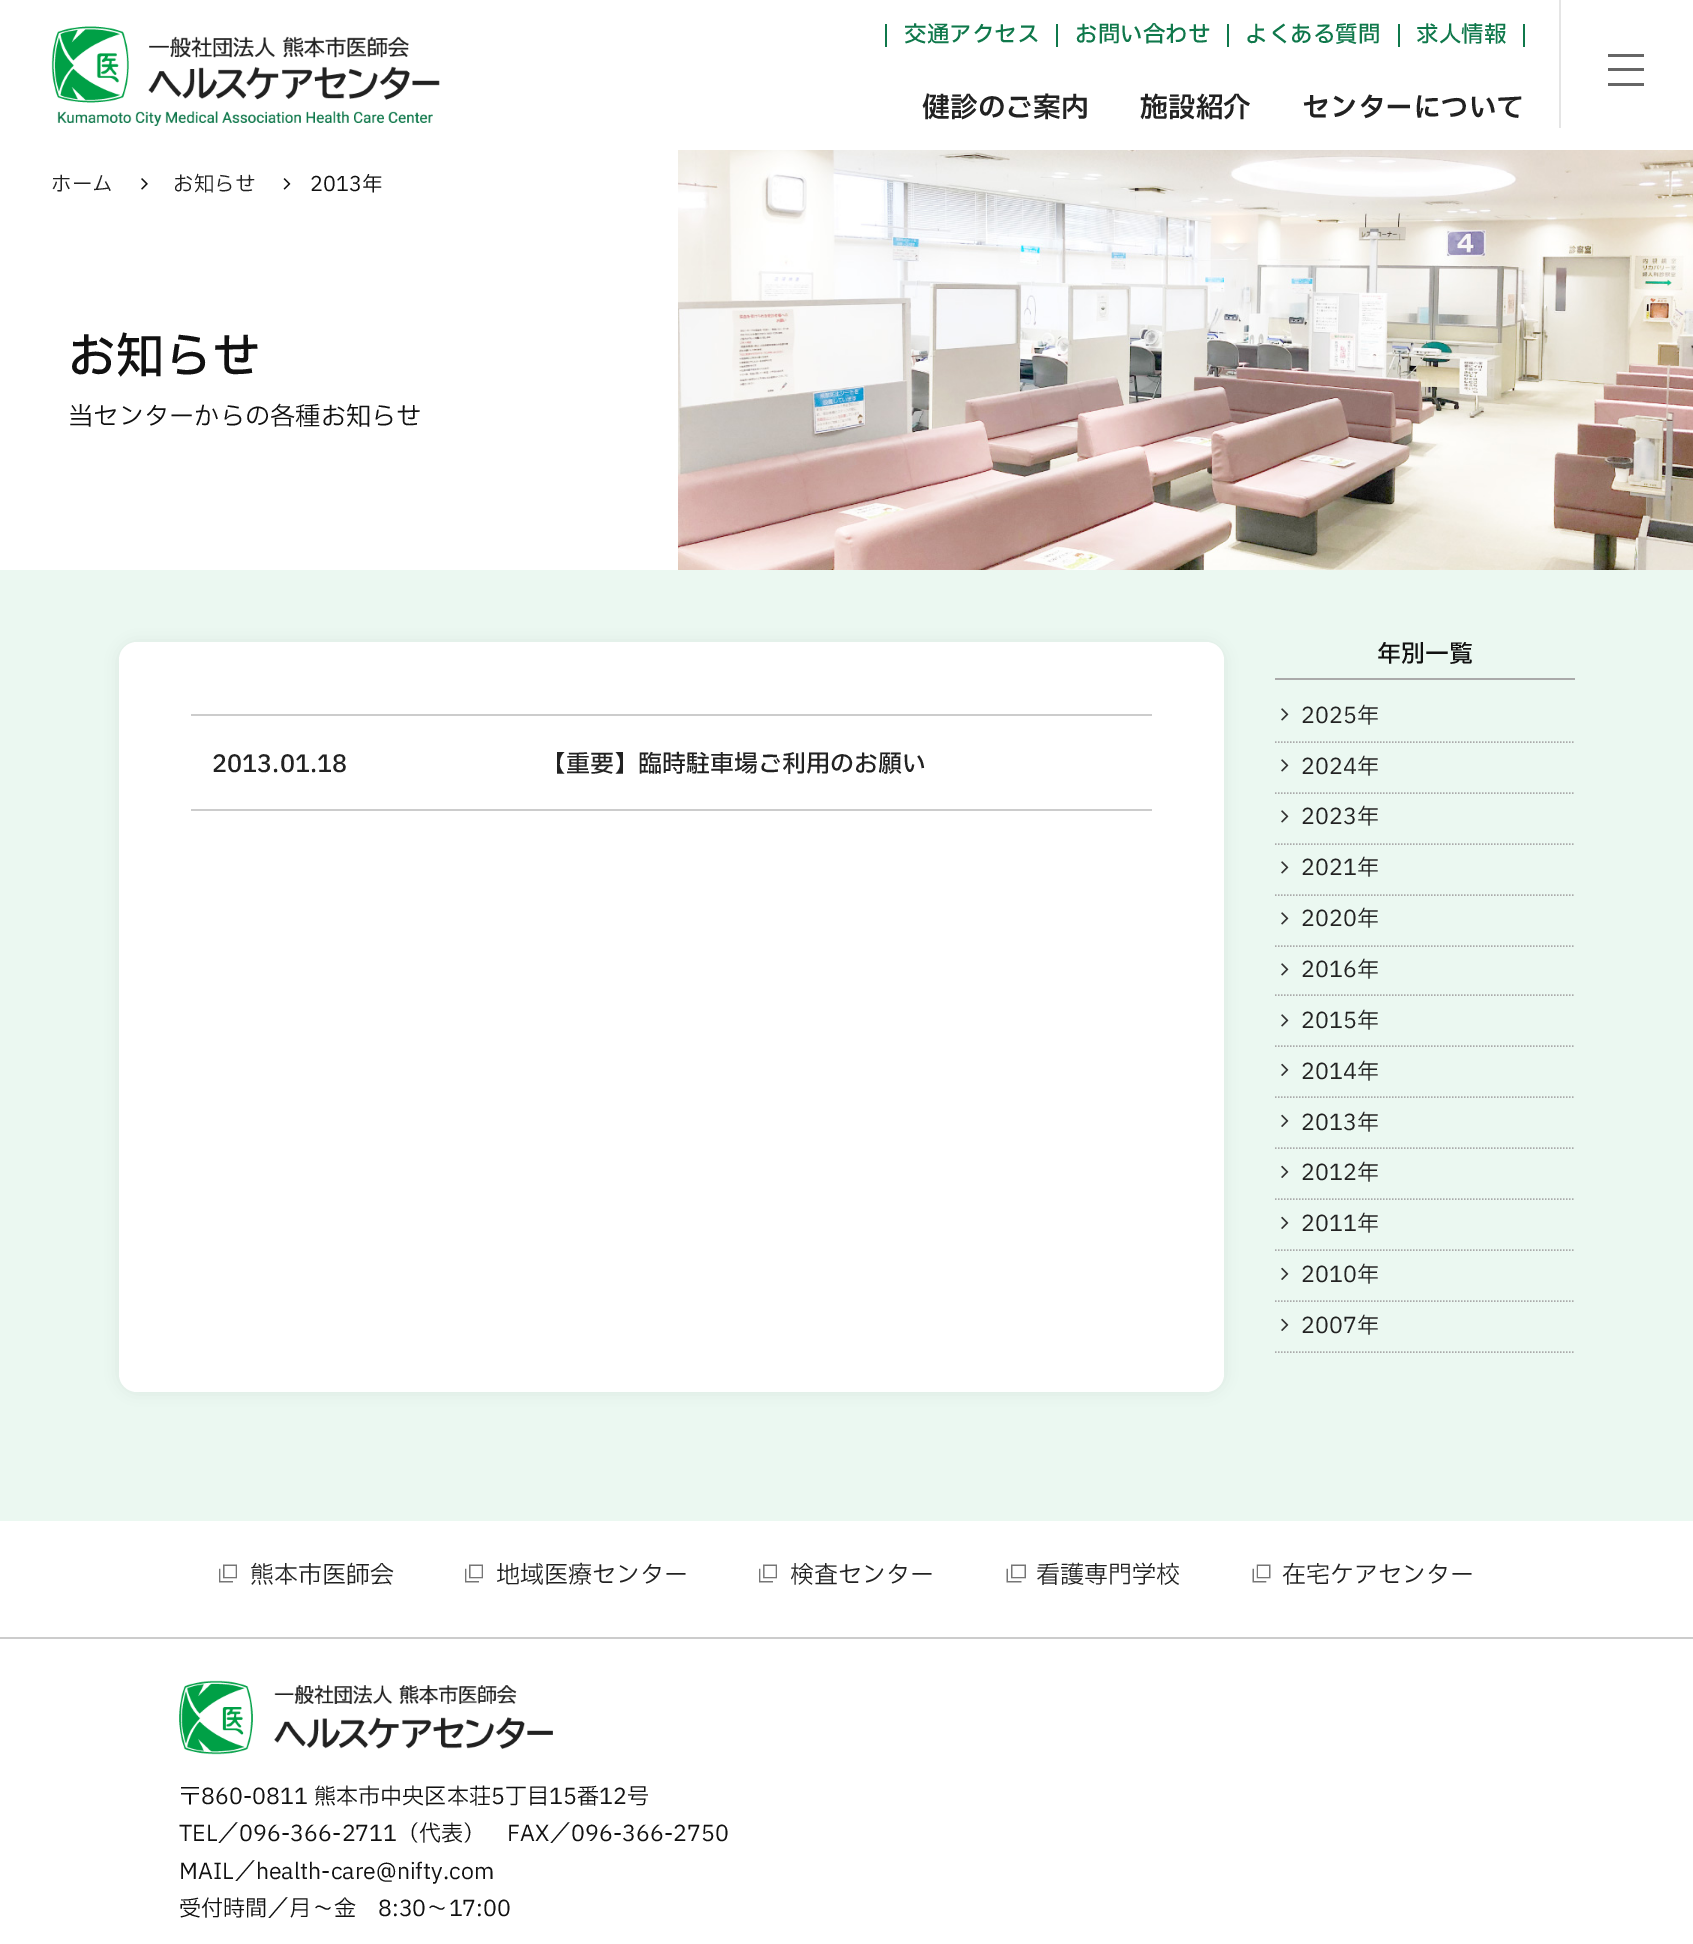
%!PS
<< /PageSize [1693 1944] /PageUsesTransparency true >> setpagedevice
/rgb { 3 { 255 div 3 1 roll } repeat setrgbcolor } def
/font { [ exch dup neg 0 0 3 -1 roll 0 0 ] selectfont } def
/alpha { dup .setfillconstantalpha .setstrokeconstantalpha } def
/roundrect { 5 dict begin { /r /h /w /y /x } { exch def } forall
  x r add y moveto x w add y 2 copy h add r arct x w add y h add x 1 index r arct
  x y h add x y r arct x y 2 copy exch w add exch r arct closepath end } def
/shadow { 12 dict begin { /a /b /q /h /w /y /x } { exch def } forall gsave /was 0 def
  9 -2 -9 { dup b mul 4 div /e exch def 1 sub .425 mul 2.718 exch exp 1 add a .99 .min exch div /now exch def
    1 1 now sub 1 was sub div sub alpha /was now def
    w h .min e 2 mul add 0 gt { x e sub y e sub w e 2 mul add h e 2 mul add
      q e add b .6 mul add w h .min 2 div e add .min 0 .max roundrect fill } if } for grestore end } def
/picture { 5 dict begin { /h /w /y /x /name } { exch def } forall
  gsave x y translate w h scale
  w h 8 [w 0 0 h 0 0] name (r) file false 3 colorimage grestore end } def
0 .pushpdf14devicefilter
0 1944 translate 1 -1 scale
4 setmiterlimit
255 255 255 rgb
0 0 1693 1944 rectfill
(img/1.rgb) 51 26 389 100 picture
[
  [1056 24 2 23 15 120 75]
  [885 24 2 23 15 120 75]
  [1227 24 2 23 15 120 75]
  [1398 24 2 23 15 120 75]
  [1523 24 2 23 15 120 75]
  [1559 0 2 128 229 229 229]
  [1608 54 36 3 102 102 102]
  [1608 68 36 3 102 102 102]
  [1608 83 36 3 102 102 102]
] { aload pop rgb rectfill } forall
(img/2.rgb) 678 150 1015 420 picture
(img/3.rgb) 141 178 7 12 picture
(img/4.rgb) 283 178 8 12 picture
235 248 241 rgb
0 570 1693 951 rectfill
0 0 0 rgb
117 641 1109 753 20 7.5 0.05 shadow
255 255 255 rgb
119 642 1105 750 18 roundrect fill
[
  [191 714 961 2 204 204 204]
  [191 809 961 2 204 204 204]
  [1275 678 300 2 170 170 170]
] { aload pop rgb rectfill } forall
1.5 setlinewidth
[1.5 1.5] 0 setdash
1275 742 moveto 1575 742 lineto stroke
(img/5.rgb) 1281 708 8 13 picture
1275 793 moveto 1575 793 lineto stroke
(img/5.rgb) 1281 759 8 13 picture
1275 844 moveto 1575 844 lineto stroke
(img/5.rgb) 1281 810 8 13 picture
1275 895 moveto 1575 895 lineto stroke
(img/5.rgb) 1281 861 8 13 picture
1275 946 moveto 1575 946 lineto stroke
(img/5.rgb) 1281 912 8 13 picture
1275 995 moveto 1575 995 lineto stroke
(img/5.rgb) 1281 963 8 13 picture
1275 1046 moveto 1575 1046 lineto stroke
(img/5.rgb) 1281 1014 8 13 picture
1275 1097 moveto 1575 1097 lineto stroke
(img/6.rgb) 1281 1063 8 13 picture
1275 1148 moveto 1575 1148 lineto stroke
(img/6.rgb) 1281 1114 8 13 picture
1275 1199 moveto 1575 1199 lineto stroke
(img/6.rgb) 1281 1165 8 13 picture
1275 1250 moveto 1575 1250 lineto stroke
(img/6.rgb) 1281 1216 8 13 picture
1275 1301 moveto 1575 1301 lineto stroke
(img/6.rgb) 1281 1267 8 13 picture
1275 1352 moveto 1575 1352 lineto stroke
(img/6.rgb) 1281 1318 8 13 picture
(img/7.rgb) 219 1564 18 19 picture
(img/7.rgb) 465 1564 18 19 picture
(img/8.rgb) 759 1564 18 19 picture
(img/9.rgb) 1006 1564 20 19 picture
(img/10.rgb) 1252 1564 19 19 picture
204 204 204 rgb
0 1637 1693 2 rectfill
(img/11.rgb) 179 1680 74 75 picture
(img/12.rgb) 274 1684 279 65 picture
/IBMPlexSansJP-Medium 22.5 font
15 120 75 rgb
[
  [(交通アクセス) 904 42]
  [(お問い合わせ) 1075 42]
  [(よくある質問) 1245 42]
  [(求人情報) 1416 42]
] { aload pop moveto show } forall
/IBMPlexSansJP-SemiBold 27.75 font
34 34 34 rgb
[
  [(健診のご案内) 922 117]
  [(施設紹介) 1140 117]
  [(センターについて) 1302 117]
] { aload pop moveto show } forall
/IBMPlexSansJP-Regular 20.5 font
51 191 moveto (ホーム) show
173 191 moveto (お知らせ) show
17 17 17 rgb
310 191 moveto (2013年) show
/IBMPlexSansJP-Medium 48 font
68 373 moveto (お知らせ) show
/IBMPlexSansJP-Regular 25.25 font
68 425 moveto (当センターからの各種お知らせ) show
/IBMPlexSansJP-Medium 24 font
34 34 34 rgb
212 772 moveto (2013.01.18) show
542 772 moveto (【重要】臨時駐車場ご利用のお願い) show
17 17 17 rgb
1377 662 moveto (年別一覧) show
/IBMPlexSansJP-Regular 22.1 font
34 34 34 rgb
[
  [(2025年) 1301 723]
  [(2024年) 1301 774]
  [(2023年) 1301 824]
  [(2021年) 1301 875]
  [(2020年) 1301 926]
  [(2016年) 1301 977]
  [(2015年) 1301 1028]
  [(2014年) 1301 1079]
  [(2013年) 1301 1130]
  [(2012年) 1301 1180]
  [(2011年) 1301 1231]
  [(2010年) 1301 1282]
  [(2007年) 1301 1333]
] { aload pop moveto show } forall
/IBMPlexSansJP-Regular 24 font
[
  [(熊本市医師会) 250 1583]
  [(地域医療センター) 496 1583]
  [(検査センター) 790 1583]
  [(看護専門学校) 1036 1583]
  [(在宅ケアセンター) 1282 1583]
] { aload pop moveto show } forall
/IBMPlexSansJP-Regular 22.1 font
17 17 17 rgb
[
  [(〒860-0811) 179 1804]
  [(熊本市中央区本荘5丁目15番12号) 314 1804]
  [(TEL／096-366-2711（代表）) 179 1841]
  [(FAX／096-366-2750) 507 1841]
  [(MAIL／health-care@nifty.com) 179 1879]
  [(受付時間／月～金　8:30～17:00) 179 1916]
] { aload pop moveto show } forall
.poppdf14devicefilter showpage
